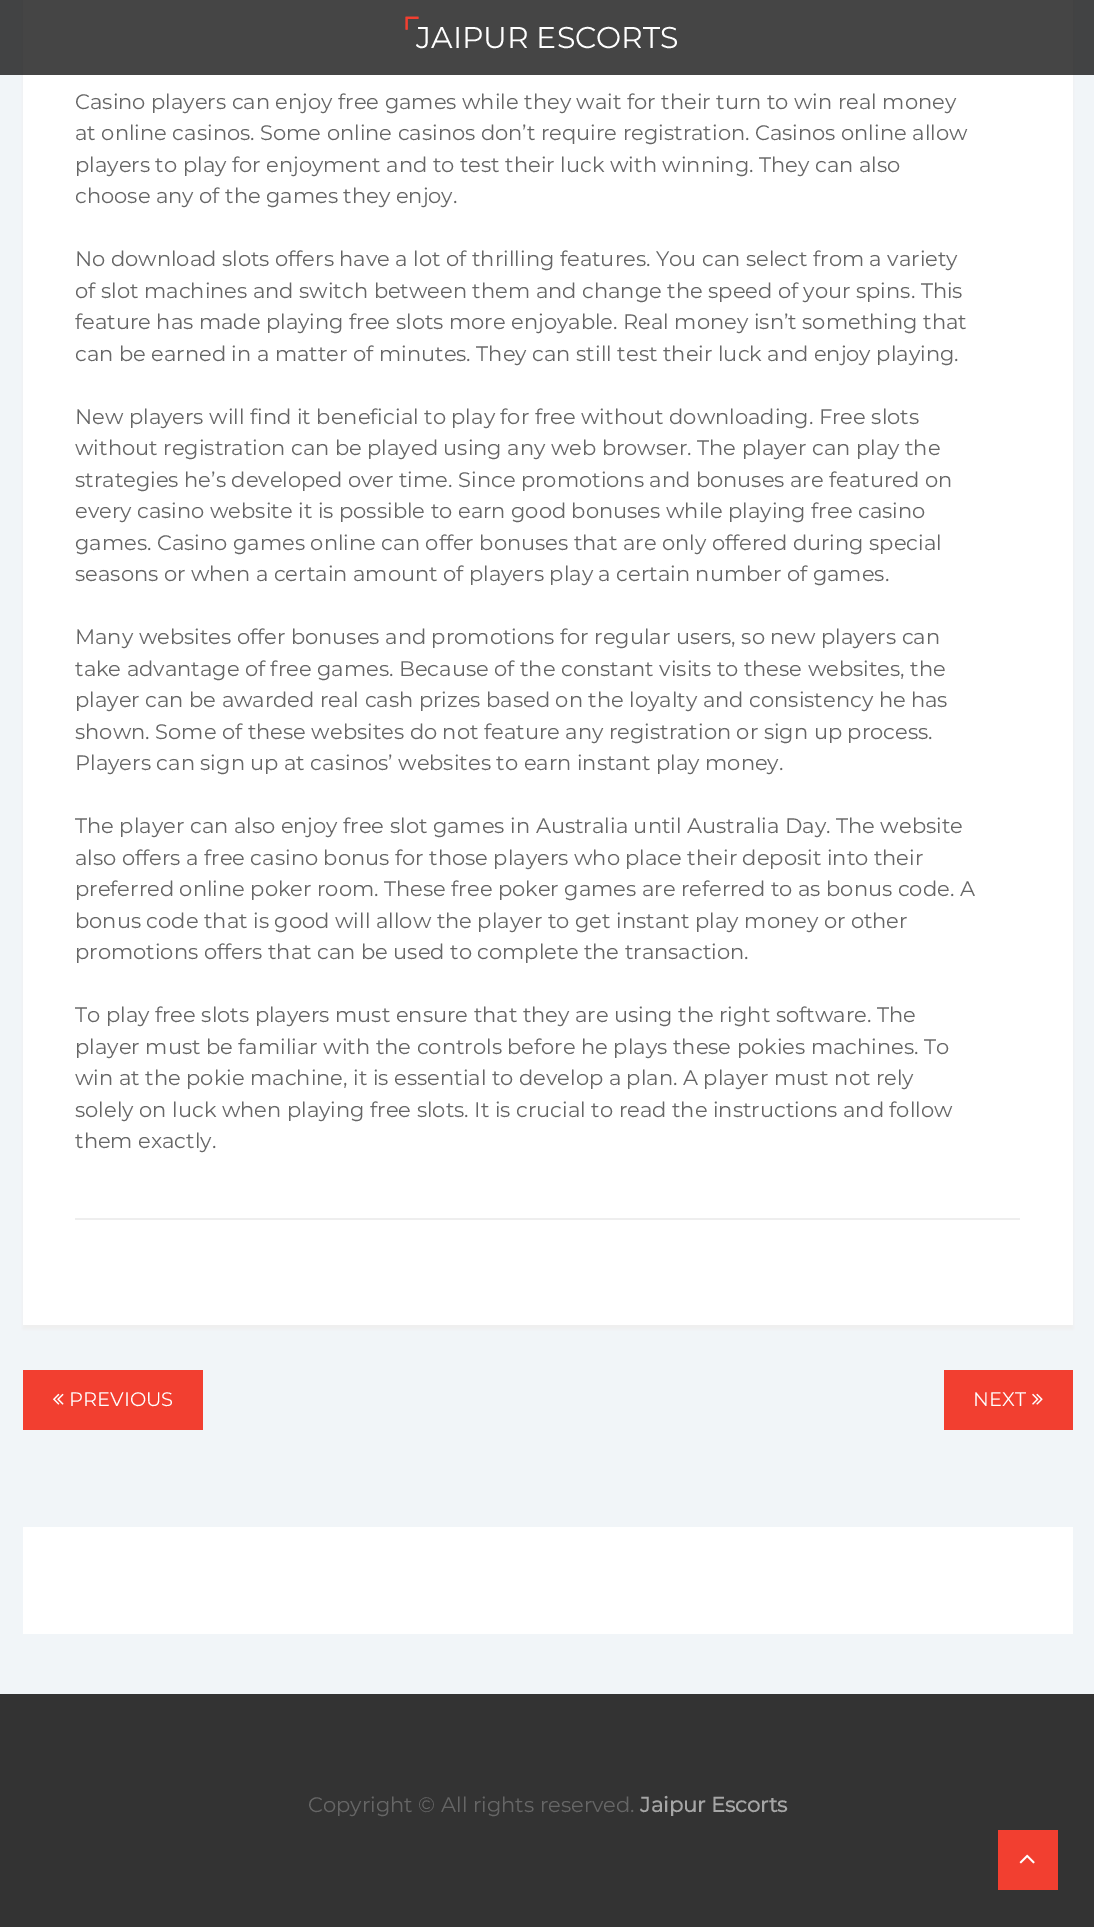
%!PS
<< /PageSize [1094 1927] /PageUsesTransparency true >> setpagedevice
/rgb { 3 { 255 div 3 1 roll } repeat setrgbcolor } def
/font { [ exch dup neg 0 0 3 -1 roll 0 0 ] selectfont } def
/alpha { dup .setfillconstantalpha .setstrokeconstantalpha } def
/roundrect { 5 dict begin { /r /h /w /y /x } { exch def } forall
  x r add y moveto x w add y 2 copy h add r arct x w add y h add x 1 index r arct
  x y h add x y r arct x y 2 copy exch w add exch r arct closepath end } def
/shadow { 12 dict begin { /a /b /q /h /w /y /x } { exch def } forall gsave /was 0 def
  9 -2 -9 { dup b mul 4 div /e exch def 1 sub .425 mul 2.718 exch exp 1 add a .99 .min exch div /now exch def
    1 1 now sub 1 was sub div sub alpha /was now def
    w h .min e 2 mul add 0 gt { x e sub y e sub w e 2 mul add h e 2 mul add
      q e add b .6 mul add w h .min 2 div e add .min 0 .max roundrect fill } if } for grestore end } def
/picture { 5 dict begin { /h /w /y /x /name } { exch def } forall
  gsave x y translate w h scale
  w h 8 [w 0 0 h 0 0] name (r) file false 3 colorimage grestore end } def
0 .pushpdf14devicefilter
0 1927 translate 1 -1 scale
4 setmiterlimit
241 245 248 rgb
0 0 1094 1927 rectfill
238 238 238 rgb
23 -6 1050 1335 0 2 1 shadow
[
  [23 0 1050 1325 255 255 255]
] { aload pop rgb rectfill } forall
0.78 alpha
[
  [0 0 1094 75 17 17 17]
] { aload pop rgb rectfill } forall
1 alpha
[
  [75 1218 945 2 238 238 238]
  [23 1370 180 60 242 63 48]
] { aload pop rgb rectfill } forall
(img/2.rgb) 53 1393 11 12 picture
944 1370 129 60 rectfill
(img/3.rgb) 1032 1393 11 12 picture
[
  [23 1527 1050 107 255 255 255]
  [0 1694 1094 233 51 51 51]
  [998 1830 60 60 242 63 48]
] { aload pop rgb rectfill } forall
(img/4.rgb) 1019 1854 16 10 picture
/Montserrat-Thin 30 font
255 255 255 rgb
416 48 moveto (JAIPUR ESCORTS) show
(img/1.rgb) 405 16 14 14 picture
/Montserrat-Thin 21 font
102 102 102 rgb
[
  [(Casino players can enjoy free games while they wait for their turn to win real money) 75 109]
  [(at online casinos. Some online casinos don’t require registration. Casinos online allow) 75 140]
  [(players to play for enjoyment and to test their luck with winning. They can also) 75 172]
  [(choose any of the games they enjoy.) 75 203]
  [(No download slots offers have a lot of thrilling features. You can select from a variety) 75 266]
  [(of slot machines and switch between them and change the speed of your spins. This) 75 298]
  [(feature has made playing free slots more enjoyable. Real money isn’t something that) 75 329]
  [(can be earned in a matter of minutes. They can still test their luck and enjoy playing.) 75 361]
  [(New players will find it beneficial to play for free without downloading. Free slots) 75 424]
  [(without registration can be played using any web browser. The player can play the) 75 455]
  [(strategies he’s developed over time. Since promotions and bonuses are featured on) 75 487]
  [(every casino website it is possible to earn good bonuses while playing free casino) 75 518]
  [(games. Casino games online can offer bonuses that are only offered during special) 75 550]
  [(seasons or when a certain amount of players play a certain number of games.) 75 581]
  [(Many websites offer bonuses and promotions for regular users, so new players can) 75 644]
  [(take advantage of free games. Because of the constant visits to these websites, the) 75 676]
  [(player can be awarded real cash prizes based on the loyalty and consistency he has) 75 707]
  [(shown. Some of these websites do not feature any registration or sign up process.) 75 739]
  [(Players can sign up at casinos’ websites to earn instant play money.) 75 770]
  [(The player can also enjoy free slot games in Australia until Australia Day. The website) 75 833]
  [(also offers a free casino bonus for those players who place their deposit into their) 75 865]
  [(preferred online poker room. These free poker games are referred to as bonus code. A) 75 896]
  [(bonus code that is good will allow the player to get instant play money or other) 75 928]
  [(promotions offers that can be used to complete the transaction.) 75 959]
  [(To play free slots players must ensure that they are using the right software. The) 75 1022]
  [(player must be familiar with the controls before he plays these pokies machines. To) 75 1054]
  [(win at the pokie machine, it is essential to develop a plan. A player must not rely) 75 1085]
  [(solely on luck when playing free slots. It is crucial to read the instructions and follow) 75 1117]
  [(them exactly.) 75 1148]
] { aload pop moveto show } forall
/Montserrat-Thin 19.5 font
255 255 255 rgb
69 1406 moveto (PREVIOUS) show
973 1406 moveto (NEXT) show
/Montserrat-Thin 21 font
102 102 102 rgb
308 1812 moveto (Copyright © All rights reserved.) show
/Montserrat-Bold 21 font
166 166 166 rgb
640 1812 moveto (Jaipur Escorts) show
.poppdf14devicefilter showpage
